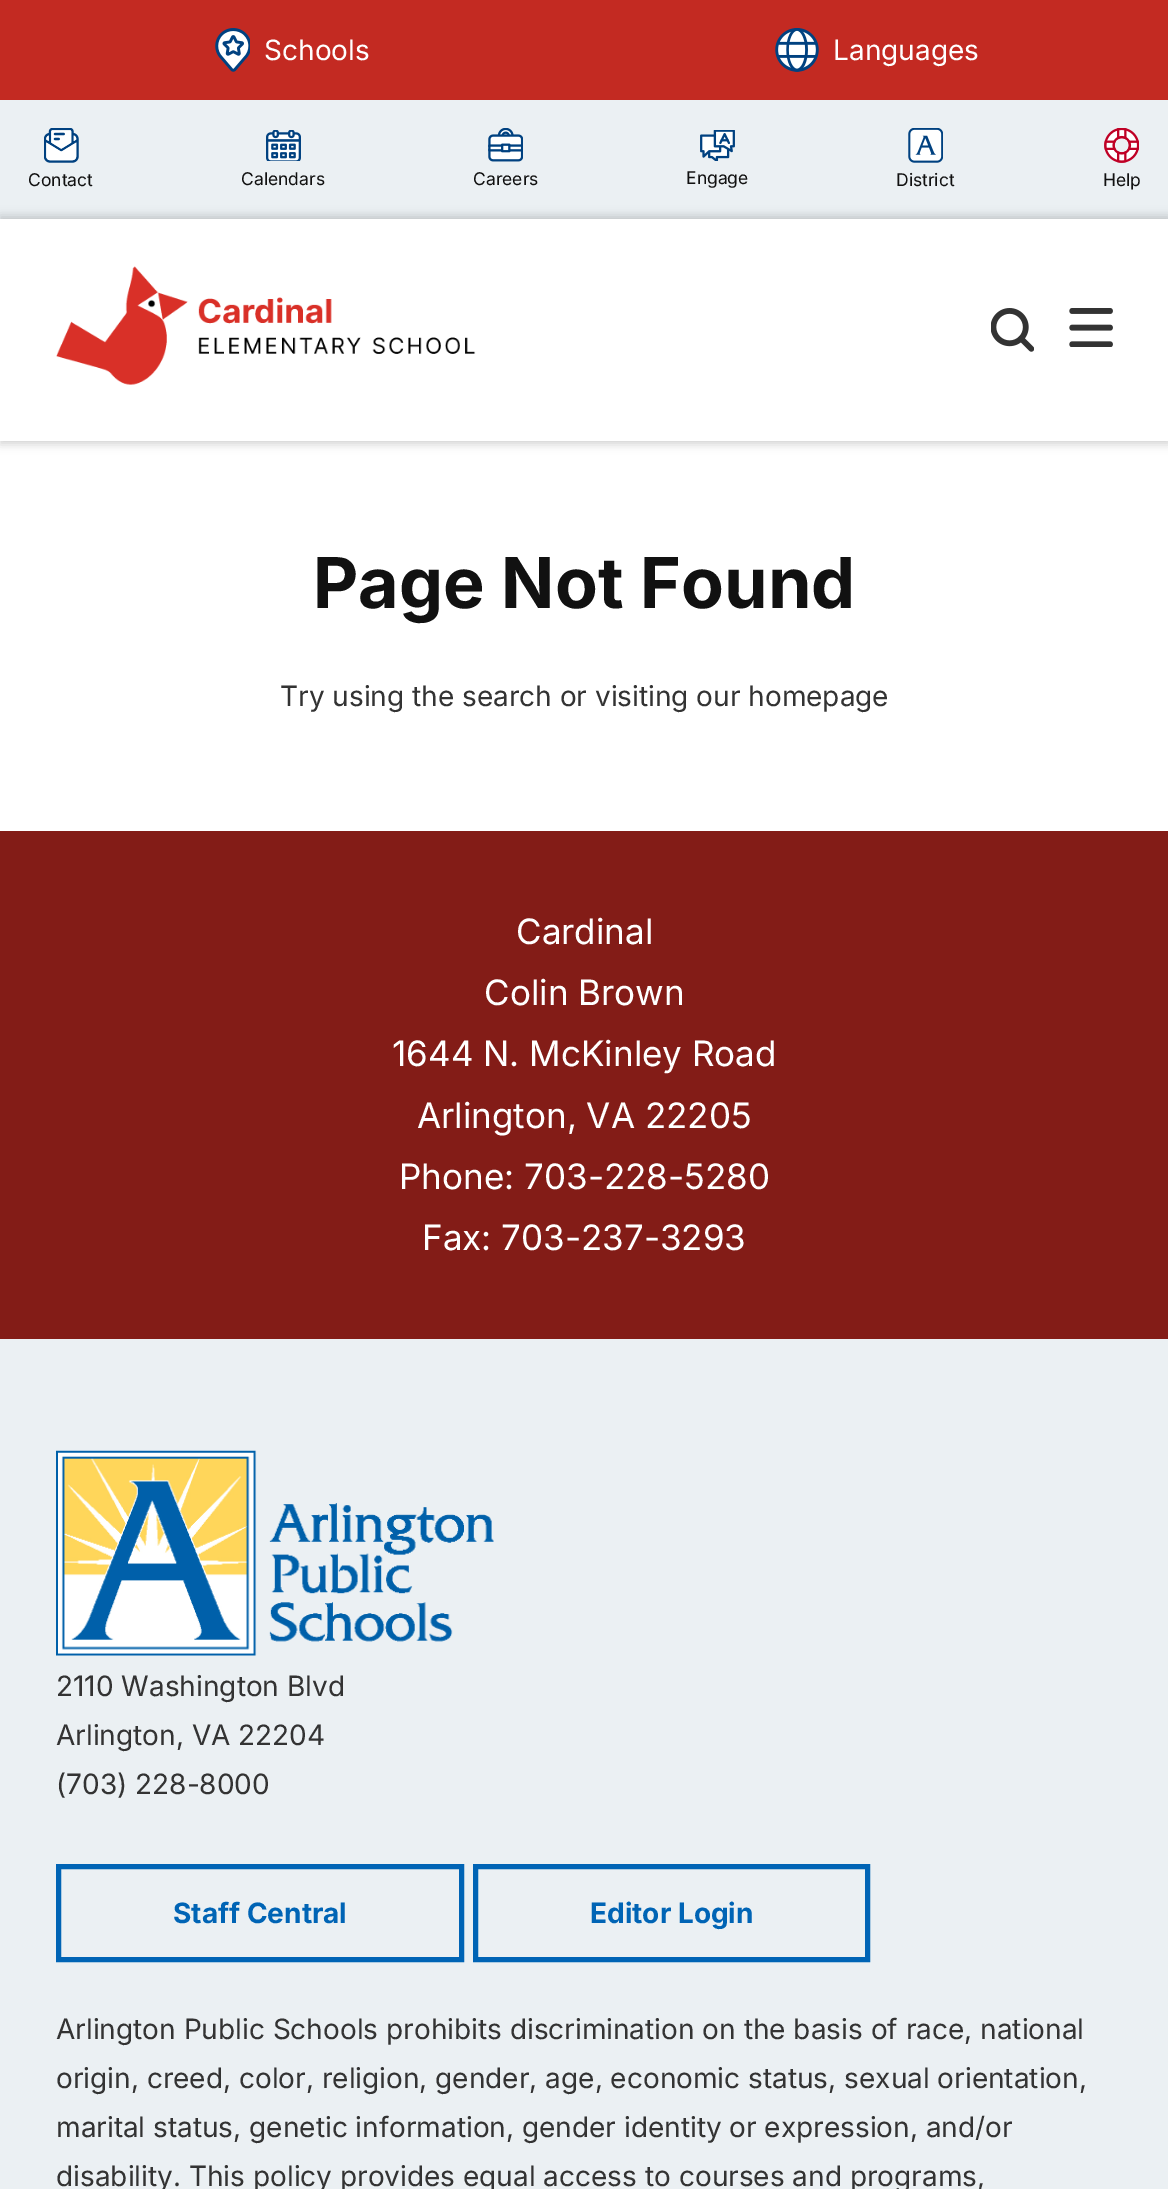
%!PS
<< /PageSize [1168 2189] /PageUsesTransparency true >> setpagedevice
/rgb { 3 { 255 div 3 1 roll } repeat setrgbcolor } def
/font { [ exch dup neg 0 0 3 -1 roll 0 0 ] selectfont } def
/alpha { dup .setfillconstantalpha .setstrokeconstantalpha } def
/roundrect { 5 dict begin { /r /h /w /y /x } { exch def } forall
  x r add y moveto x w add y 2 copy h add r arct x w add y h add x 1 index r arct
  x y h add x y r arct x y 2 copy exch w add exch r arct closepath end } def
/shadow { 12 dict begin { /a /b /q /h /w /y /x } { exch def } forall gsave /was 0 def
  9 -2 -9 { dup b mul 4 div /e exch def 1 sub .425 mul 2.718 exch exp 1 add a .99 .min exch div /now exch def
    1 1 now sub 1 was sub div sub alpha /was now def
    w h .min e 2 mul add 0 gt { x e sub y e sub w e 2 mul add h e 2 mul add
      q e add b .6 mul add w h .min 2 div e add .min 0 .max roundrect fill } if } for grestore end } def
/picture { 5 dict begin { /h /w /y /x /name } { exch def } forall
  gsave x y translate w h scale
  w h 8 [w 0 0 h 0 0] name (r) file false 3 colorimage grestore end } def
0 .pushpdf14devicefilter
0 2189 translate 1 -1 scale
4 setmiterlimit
255 255 255 rgb
0 0 1168 2189 rectfill
195 42 34 rgb
0 0 1168 100 rectfill
(img/1.rgb) 215 28 35 44 picture
(img/2.rgb) 775 28 44 44 picture
235 240 243 rgb
0 100 1168 119 rectfill
(img/3.rgb) 44 128 35 35 picture
(img/4.rgb) 266 130 35 31 picture
(img/5.rgb) 488 128 35 34 picture
(img/6.rgb) 700 130 35 31 picture
(img/7.rgb) 908 128 35 35 picture
(img/8.rgb) 1104 128 35 35 picture
gsave
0 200 moveto 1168 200 lineto 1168 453 lineto 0 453 lineto closepath 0 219 moveto 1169 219 lineto 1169 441 lineto 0 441 lineto closepath eoclip newpath
0 0 0 rgb
0 215 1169 223 0 4.5 0.13 shadow
grestore
gsave
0 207 moveto 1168 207 lineto 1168 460 lineto 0 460 lineto closepath 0 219 moveto 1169 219 lineto 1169 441 lineto 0 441 lineto closepath eoclip newpath
0 0 0 rgb
0 222 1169 223 0 4.5 0.13 shadow
grestore
(img/9.rgb) 56 266 420 119 picture
(img/10.rgb) 991 308 43 44 picture
(img/11.rgb) 1069 308 44 39 picture
131 28 23 rgb
0 831 1168 508 rectfill
235 240 243 rgb
0 1339 1168 850 rectfill
(img/12.rgb) 56 1450 438 206 picture
0 100 181 rgb
5 setlinewidth
58.5 1866.5 403 93 rectstroke
475.5 1866.5 392 93 rectstroke
/Inter-Regular 28 font
255 255 255 rgb
264 60 moveto (Schools) show
833 60 moveto (Languages) show
/Inter-Regular 17.5 font
17 17 17 rgb
[
  [(Contact) 28 186]
  [(Calendars) 241 185]
  [(Careers) 473 185]
  [(Engage) 686 184]
  [(District) 896 186]
  [(Help) 1103 186]
] { aload pop moveto show } forall
/Inter-Bold 70 font
313 608 moveto (Page Not Found) show
/Inter-Regular 28 font
51 51 51 rgb
280 706 moveto (Try using the search or visiting our homepage) show
/Inter-Regular 35 font
255 255 255 rgb
[
  [(Cardinal) 516 944]
  [(Colin Brown) 484 1005]
  [(1644 N. McKinley Road) 392 1066]
  [(Arlington, VA 22205) 417 1128]
  [(Phone: 703-228-5280) 399 1189]
  [(Fax: 703-237-3293) 422 1250]
] { aload pop moveto show } forall
/Inter-Regular 28 font
51 51 51 rgb
[
  [(2110 Washington Blvd) 56 1696]
  [(Arlington, VA 22204) 56 1745]
  [(\(703\) 228-8000) 56 1794]
] { aload pop moveto show } forall
/Inter-Bold 28 font
0 100 181 rgb
173 1923 moveto (Staff Central) show
590 1923 moveto (Editor Login) show
/Inter-Regular 28 font
51 51 51 rgb
[
  [(Arlington Public Schools prohibits discrimination on the basis of race, national) 56 2039]
  [(origin, creed, color, religion, gender, age, economic status, sexual orientation,) 56 2088]
  [(marital status, genetic information, gender identity or expression, and/or) 56 2137]
  [(disability. This policy provides equal access to courses and programs,) 56 2186]
] { aload pop moveto show } forall
.poppdf14devicefilter showpage
